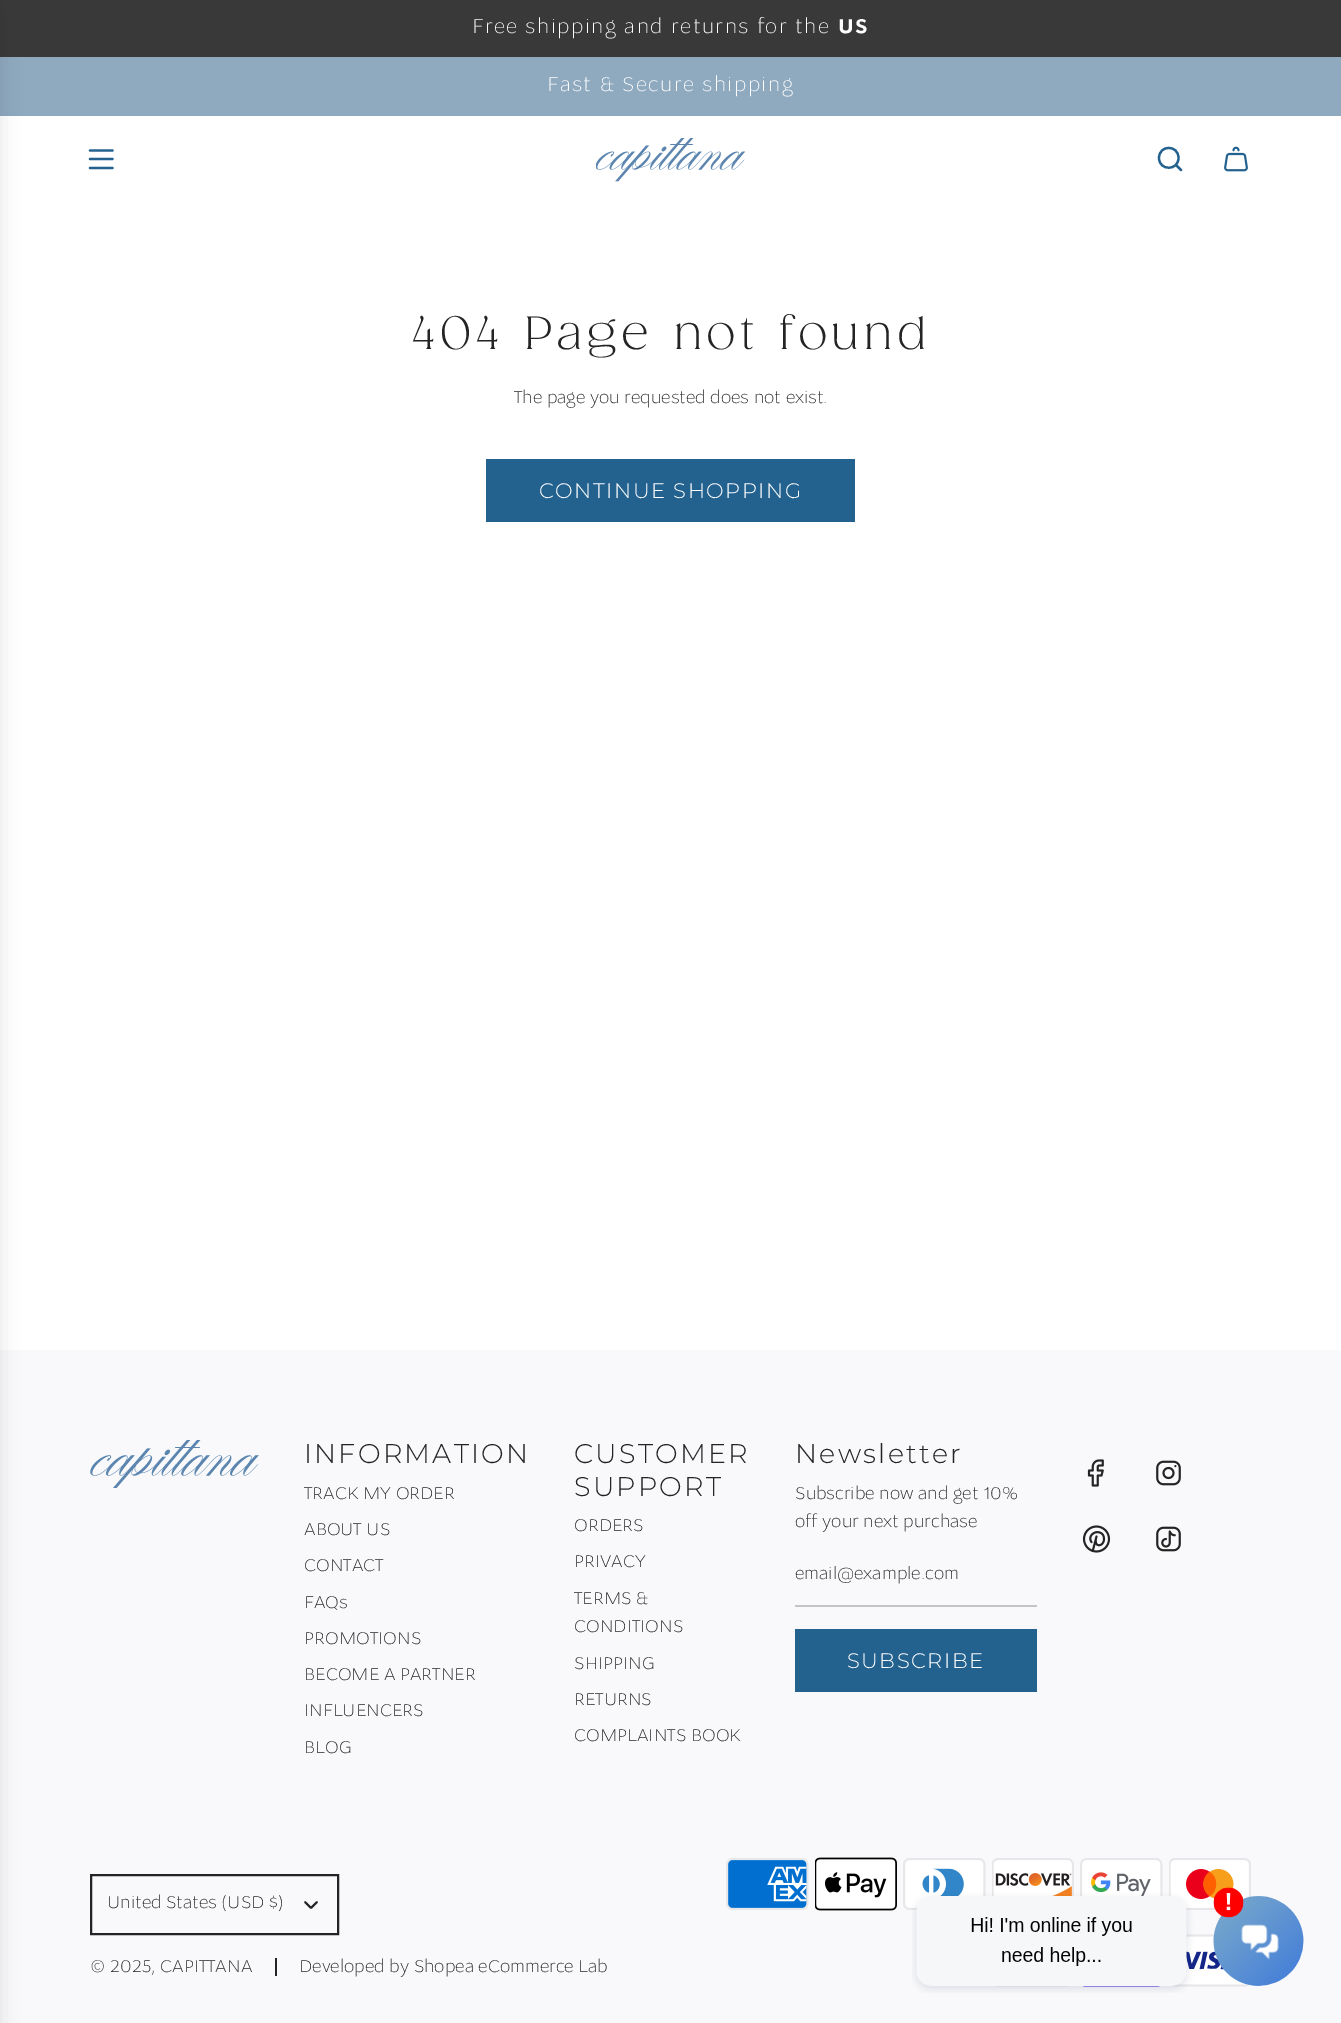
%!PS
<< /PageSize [1341 2023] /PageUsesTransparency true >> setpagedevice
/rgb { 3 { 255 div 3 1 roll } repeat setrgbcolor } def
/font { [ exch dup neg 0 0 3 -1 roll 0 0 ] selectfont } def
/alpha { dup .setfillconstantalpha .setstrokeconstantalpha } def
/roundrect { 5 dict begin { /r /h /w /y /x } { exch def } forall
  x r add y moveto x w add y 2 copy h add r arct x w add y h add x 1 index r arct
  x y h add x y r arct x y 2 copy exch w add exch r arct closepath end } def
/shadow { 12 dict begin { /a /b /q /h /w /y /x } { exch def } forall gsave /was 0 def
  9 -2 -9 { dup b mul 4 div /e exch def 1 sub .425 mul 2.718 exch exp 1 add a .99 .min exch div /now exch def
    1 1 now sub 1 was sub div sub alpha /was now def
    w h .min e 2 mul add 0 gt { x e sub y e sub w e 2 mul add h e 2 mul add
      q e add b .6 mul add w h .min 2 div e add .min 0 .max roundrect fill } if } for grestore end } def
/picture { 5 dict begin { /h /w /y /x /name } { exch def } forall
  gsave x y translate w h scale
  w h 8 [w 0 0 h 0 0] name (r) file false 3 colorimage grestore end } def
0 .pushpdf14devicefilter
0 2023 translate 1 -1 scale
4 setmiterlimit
255 255 255 rgb
0 0 1341 2023 rectfill
[
  [0 0 1341 57 57 57 57]
  [0 57 1341 59 143 169 191]
  [0 1350 1341 673 249 249 251]
] { aload pop rgb rectfill } forall
0 0 0 rgb
-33 8 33 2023 0 11 0.1 shadow
35 97 143 rgb
2.2 setlinewidth
1 setlinecap
1 setlinejoin
90 150.5 moveto 112.5 150.5 lineto 90 159 moveto 112.5 159 lineto 90 168 moveto 112.5 168 lineto stroke
(img/1.rgb) 596 138 150 44 picture
1176.5 165.5 moveto 1181 170 lineto 1159 158 moveto 1159 171 1178.5 171 1178.5 158 curveto 1178.5 144.5 1159 144.5 1159 158 curveto closepath stroke
(img/2.rgb) 1224 146 24 26 picture
486 459 369 63 rectfill
(img/3.rgb) 90 1440 169 48 picture
196 196 197 rgb
795 1605 242 2 rectfill
35 97 143 rgb
795 1629 242 63 rectfill
(img/4.rgb) 1087 1459 17 28 picture
(img/5.rgb) 1156 1460 25 26 picture
(img/6.rgb) 1082 1525 29 28 picture
(img/7.rgb) 1156 1526 25 26 picture
36 36 36 rgb
2 setlinewidth
0 setlinecap
0 setlinejoin
91 1875 247 59 rectstroke
1.8 setlinewidth
1 setlinecap
1 setlinejoin
305 1902 moveto 311 1908 lineto 317 1902 lineto stroke
275 1958 2 18 rectfill
(img/8.rgb) 726 1858 83 52 picture
(img/9.rgb) 815 1857 82 54 picture
(img/10.rgb) 903 1858 83 52 picture
(img/11.rgb) 992 1858 82 38 picture
(img/12.rgb) 1080 1858 83 38 picture
(img/13.rgb) 1169 1858 82 52 picture
(img/14.rgb) 996 1986 73 1 picture
(img/15.rgb) 1082 1986 78 1 picture
(img/16.rgb) 1172 1934 77 53 picture
(img/17.rgb) 912 1887 392 106 picture
/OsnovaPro-Light 21 font
255 255 255 rgb
472 33 moveto 1.5 0 (Free shipping and returns for the) ashow
/OsnovaPro-Bold 21 font
838 33 moveto 1.5 0 (US) ashow
/OsnovaPro-Light 21 font
547 91 moveto 1.5 0 (Fast & Secure shipping) ashow
/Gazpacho-Light 45 font
36 36 36 rgb
410 349 moveto 3.6 0 (404 Page not found) ashow
/OsnovaPro-Light 18 font
514 403 moveto (The page you requested does not exist.) show
/Montserrat-Light 21 font
255 255 255 rgb
539 498 moveto 1.5 0 (CONTINUE SHOPPING) ashow
/Montserrat-Light 27 font
36 36 36 rgb
304 1463 moveto 2.25 0 (INFORMATION) ashow
/OsnovaPro-Light 18 font
[
  [(TRACK MY ORDER) 304 1499]
  [(ABOUT US) 304 1535]
  [(CONTACT) 304 1571]
  [(FAQs) 304 1608]
  [(PROMOTIONS) 304 1644]
  [(BECOME A PARTNER) 304 1680]
  [(INFLUENCERS) 304 1716]
  [(BLOG) 304 1753]
] { aload pop moveto show } forall
/Montserrat-Light 27 font
574 1463 moveto 2.25 0 (CUSTOMER) ashow
574 1496 moveto 2.25 0 (SUPPORT) ashow
/OsnovaPro-Light 18 font
[
  [(ORDERS) 574 1531]
  [(PRIVACY) 574 1567]
  [(TERMS &) 574 1604]
  [(CONDITIONS) 574 1632]
  [(SHIPPING) 574 1669]
  [(RETURNS) 574 1705]
  [(COMPLAINTS BOOK) 574 1741]
] { aload pop moveto show } forall
/Montserrat-Light 27 font
795 1463 moveto 2.25 0 (Newsletter) ashow
/OsnovaPro-Light 18 font
795 1499 moveto (Subscribe now and get 10%) show
795 1527 moveto (off your next purchase) show
gsave
795 1566 227 20 rectclip
795 1579 moveto (email@example.com) show
grestore
/Montserrat-Light 21 font
255 255 255 rgb
847 1668 moveto 1.5 0 (SUBSCRIBE) ashow
/OsnovaPro-Light 18 font
36 36 36 rgb
[
  [(United States \(USD $\)) 107 1908]
  [(© 2025, CAPITTANA) 90 1972]
  [(Developed by Shopea eCommerce Lab) 299 1972]
] { aload pop moveto show } forall
.poppdf14devicefilter showpage
